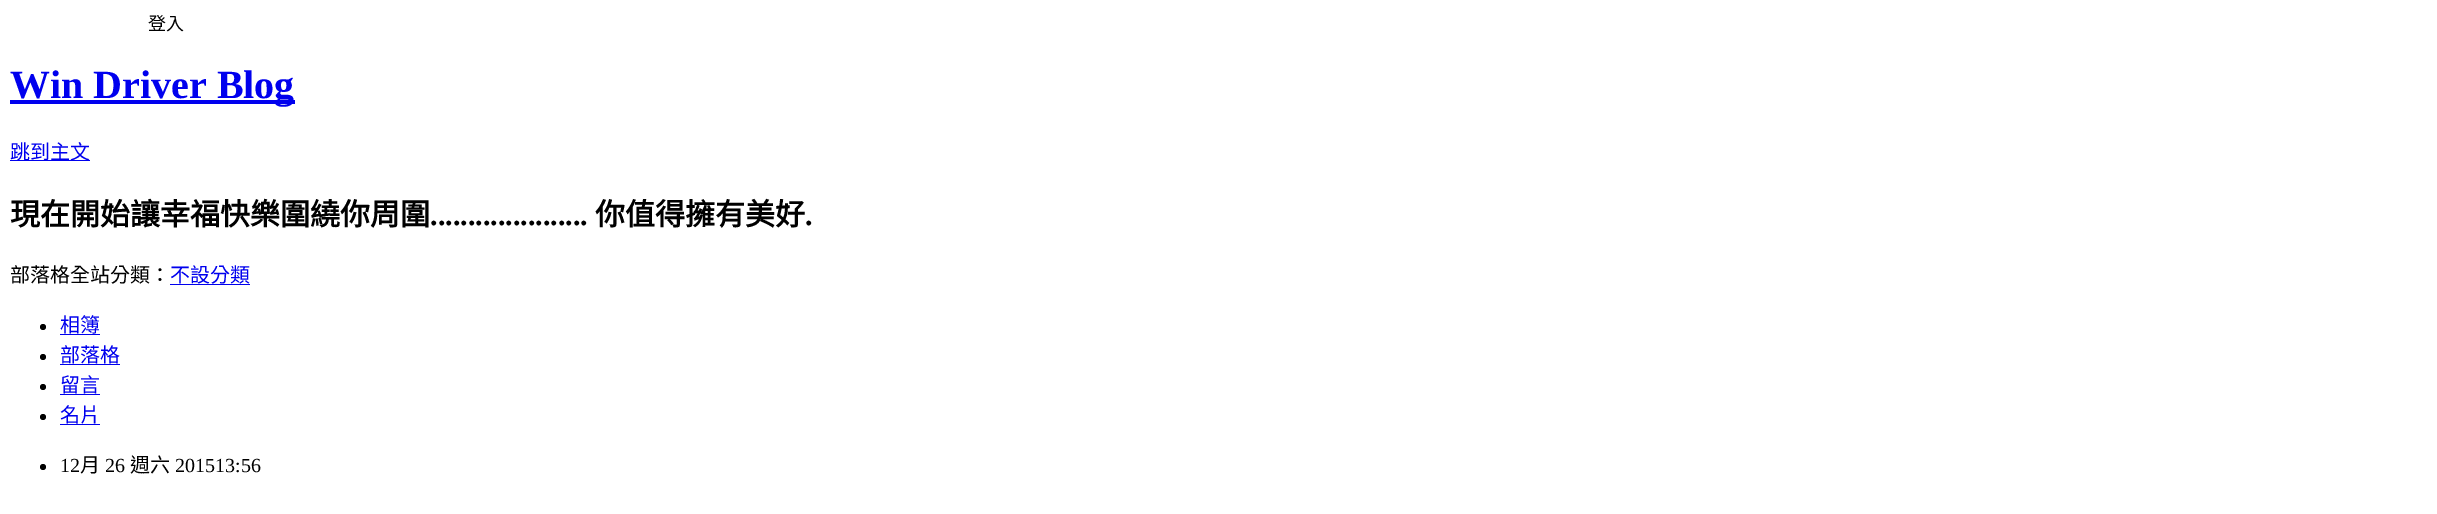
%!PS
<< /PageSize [2437 514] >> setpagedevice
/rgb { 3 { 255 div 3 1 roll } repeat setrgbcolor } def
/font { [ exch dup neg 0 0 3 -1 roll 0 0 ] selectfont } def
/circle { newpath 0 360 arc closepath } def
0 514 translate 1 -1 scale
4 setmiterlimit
255 255 255 rgb
0 0 2437 514 rectfill
[
  [10 100 285 4 0 0 238]
  [10 160 80 1 0 0 238]
  [170 284 80 1 0 0 238]
] { aload pop rgb rectfill } forall
0 0 0 rgb
43 327 3 circle fill
0 0 238 rgb
60 334 40 1 rectfill
0 0 0 rgb
43 357 3 circle fill
0 0 238 rgb
60 364 60 1 rectfill
0 0 0 rgb
43 387 3 circle fill
0 0 238 rgb
60 394 40 1 rectfill
0 0 0 rgb
43 417 3 circle fill
0 0 238 rgb
60 424 40 1 rectfill
0 0 0 rgb
43 467 3 circle fill
/NotoSansCJKTC-Regular 18 font
148 30 moveto (登入) show
/LiberationSerif-Bold 40 font
0 0 238 rgb
10 98 moveto (Win Driver Blog) show
/NotoSansCJKTC-Regular 20 font
10 159 moveto (跳到主文) show
/NotoSansCJKTC-Bold 30 font
0 0 0 rgb
10 225 moveto (現在開始讓幸福快樂圍繞你周圍) show
/LiberationSerif-Bold 30 font
430 225 moveto (.....................) show
/NotoSansCJKTC-Bold 30 font
595 225 moveto (你值得擁有美好) show
/LiberationSerif-Bold 30 font
805 225 moveto (.) show
/NotoSansCJKTC-Regular 20 font
10 282 moveto (部落格全站分類：) show
0 0 238 rgb
[
  [(不設分類) 170 282]
  [(相簿) 60 332]
  [(部落格) 60 362]
  [(留言) 60 392]
  [(名片) 60 422]
] { aload pop moveto show } forall
/LiberationSerif-Regular 20 font
0 0 0 rgb
60 472 moveto (12) show
/NotoSansCJKTC-Regular 20 font
80 472 moveto (月) show
/LiberationSerif-Regular 20 font
105 472 moveto (26) show
/NotoSansCJKTC-Regular 20 font
130 472 moveto (週六) show
/LiberationSerif-Regular 20 font
175 472 moveto (201513:56) show
showpage
